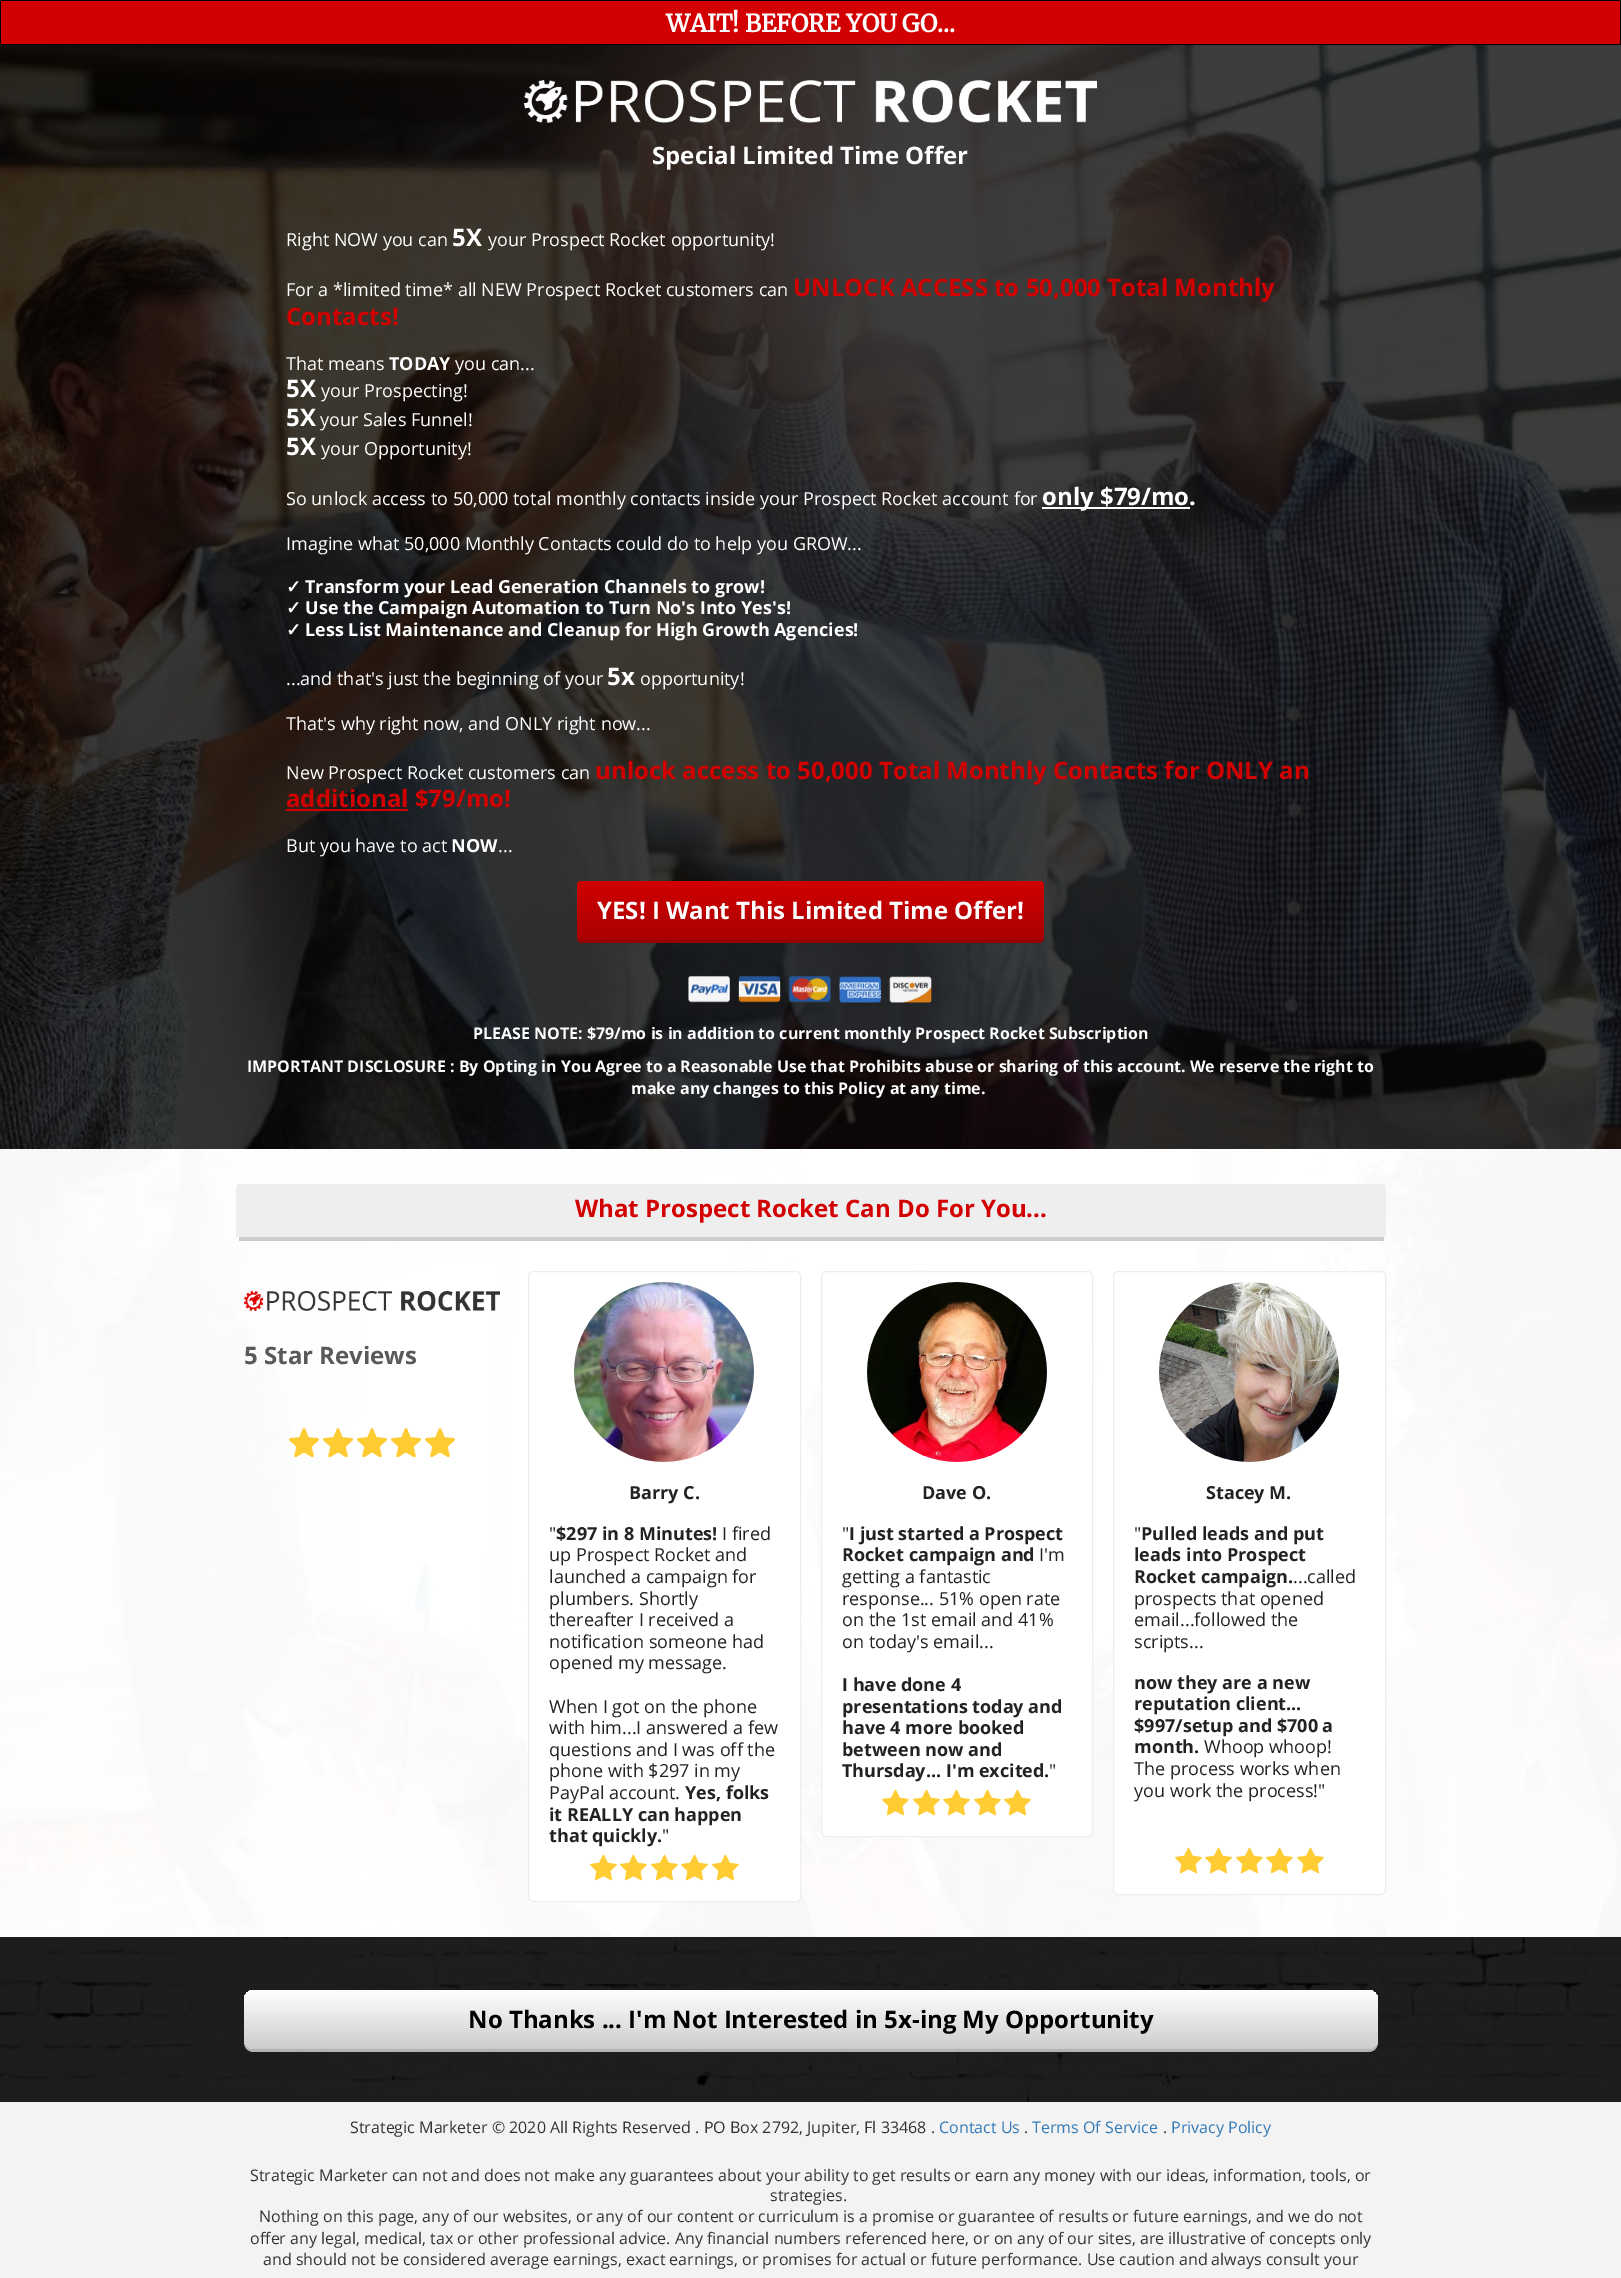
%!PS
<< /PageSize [1621 2278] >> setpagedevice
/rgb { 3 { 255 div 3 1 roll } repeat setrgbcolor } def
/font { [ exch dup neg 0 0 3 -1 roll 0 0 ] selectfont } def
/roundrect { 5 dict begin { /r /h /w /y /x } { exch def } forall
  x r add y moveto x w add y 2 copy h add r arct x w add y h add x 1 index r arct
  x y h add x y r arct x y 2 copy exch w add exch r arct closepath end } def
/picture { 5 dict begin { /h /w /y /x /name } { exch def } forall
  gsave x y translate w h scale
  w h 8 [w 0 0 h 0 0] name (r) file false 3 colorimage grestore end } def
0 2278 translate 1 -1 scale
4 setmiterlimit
255 255 255 rgb
0 0 1621 2278 rectfill
0 0 0 rgb
0.5 0.5 1620 44 rectstroke
210 0 1 rgb
1 1 1619 43 rectfill
(img/1.rgb) 0 45 1621 1104 picture
(img/2.rgb) 524 80 573 43 picture
255 255 255 rgb
1042 507 148 2 rectfill
210 0 1 rgb
286 809 122 2 rectfill
147 0 1 rgb
577 935 moveto 577 939 577 943 582 943 curveto 1039 943 lineto 1044 943 1044 939 1044 935 curveto 1044 938 1042 940 1039 940 curveto 582 940 lineto 579 940 577 938 577 935 curveto closepath fill
gsave 577 881 467 59 5 roundrect clip newpath
<< /ShadingType 2 /ColorSpace /DeviceRGB /Coords [811 881 811 940] /Extend [true true] /Function << /FunctionType 2 /Domain [0 1] /C0 [0.824 0 0.004] /C1 [0.659 0 0.004] /N 1 >> >> shfill grestore
(img/3.rgb) 688 975 244 28 picture
(img/4.rgb) 0 1149 1621 788 picture
238 238 238 rgb
241 1184 moveto 1381 1184 lineto 1384 1184 1386 1186 1386 1189 curveto 1386 1236 lineto 1386 1237 1384 1237 1381 1237 curveto 241 1237 lineto 238 1237 236 1237 236 1236 curveto 236 1189 lineto 236 1186 238 1184 241 1184 curveto closepath fill
204 204 204 rgb
239 1237 1145 4 rectfill
(img/5.rgb) 244 1291 256 20 picture
(img/6.rgb) 289 1428 166 30 picture
255 255 255 rgb
528.5 1271.5 272 630 4.5 roundrect gsave fill grestore
238 238 238 rgb
stroke
(img/7.rgb) 574 1282 180 180 picture
(img/8.rgb) 590 1854 27 27 picture
(img/8.rgb) 620 1854 27 27 picture
(img/8.rgb) 651 1854 27 27 picture
(img/8.rgb) 681 1854 27 27 picture
(img/8.rgb) 712 1854 27 27 picture
255 255 255 rgb
821.5 1271.5 271 565 4.5 roundrect gsave fill grestore
238 238 238 rgb
stroke
(img/9.rgb) 867 1282 180 180 picture
(img/8.rgb) 882 1789 27 27 picture
(img/8.rgb) 913 1789 27 27 picture
(img/8.rgb) 943 1789 27 27 picture
(img/8.rgb) 974 1789 27 27 picture
(img/8.rgb) 1004 1789 27 27 picture
255 255 255 rgb
1113.5 1271.5 272 623 4.5 roundrect gsave fill grestore
238 238 238 rgb
stroke
(img/10.rgb) 1159 1282 180 180 picture
(img/8.rgb) 1175 1847 27 27 picture
(img/8.rgb) 1205 1847 27 27 picture
(img/8.rgb) 1236 1847 27 27 picture
(img/8.rgb) 1266 1847 27 27 picture
(img/8.rgb) 1297 1847 27 27 picture
(img/11.rgb) 0 1937 1621 165 picture
179 179 179 rgb
244 2039 moveto 244 2042 lineto 244 2048 248 2052 254 2052 curveto 1368 2052 lineto 1374 2052 1378 2048 1378 2042 curveto 1378 2039 lineto 1378 2045 1374 2049 1368 2049 curveto 254 2049 lineto 248 2049 244 2045 244 2039 curveto closepath fill
gsave 244 1990 1134 59 10 roundrect clip newpath
<< /ShadingType 2 /ColorSpace /DeviceRGB /Coords [811 1990 811 2049] /Extend [true true] /Function << /FunctionType 2 /Domain [0 1] /C0 [1 1 1] /C1 [0.8 0.8 0.8] /N 1 >> >> shfill grestore
243 243 243 rgb
0 2102 1621 176 rectfill
/Merriweather-Bold 24 font
255 255 255 rgb
666 32 moveto (WAIT! BEFORE YOU GO...) show
/OpenSans-Bold 24 font
652 164 moveto (Special Limited Time Offer) show
/OpenSans-Regular 18 font
286 246 moveto (Right NOW you can) show
/OpenSans-Bold 24 font
452 246 moveto (5X) show
/OpenSans-Regular 18 font
488 246 moveto (your Prospect Rocket opportunity!) show
286 296 moveto (For a *limited time* all NEW Prospect Rocket customers can) show
/OpenSans-Bold 24 font
210 0 1 rgb
793 296 moveto (UNLOCK ACCESS to 50,000 Total Monthly) show
286 325 moveto (Contacts!) show
/OpenSans-Regular 18 font
255 255 255 rgb
286 370 moveto (That means) show
/OpenSans-Bold 18 font
389 370 moveto (TODAY) show
/OpenSans-Regular 18 font
455 370 moveto (you can...) show
/OpenSans-Bold 24 font
286 397 moveto (5X) show
/OpenSans-Regular 18 font
321 397 moveto (your Prospecting!) show
/OpenSans-Bold 24 font
286 426 moveto (5X) show
/OpenSans-Regular 18 font
320 426 moveto (your Sales Funnel!) show
/OpenSans-Bold 24 font
286 455 moveto (5X) show
/OpenSans-Regular 18 font
321 455 moveto (your Opportunity!) show
286 505 moveto (So unlock access to 50,000 total monthly contacts inside your Prospect Rocket account for) show
/OpenSans-Bold 24 font
1042 505 moveto (only $79/mo.) show
/OpenSans-Regular 18 font
286 550 moveto (Imagine what 50,000 Monthly Contacts could do to help you GROW...) show
/DejaVuSans-Bold 18 font
286 593 moveto (✓) show
/OpenSans-Bold 18 font
305 593 moveto (Transform your Lead Generation Channels to grow!) show
/DejaVuSans-Bold 18 font
286 614 moveto (✓) show
/OpenSans-Bold 18 font
305 614 moveto (Use the Campaign Automation to Turn No's Into Yes's!) show
/DejaVuSans-Bold 18 font
286 636 moveto (✓) show
/OpenSans-Bold 18 font
305 636 moveto (Less List Maintenance and Cleanup for High Growth Agencies!) show
/OpenSans-Regular 18 font
286 685 moveto (...and that's just the beginning of your) show
/OpenSans-Bold 24 font
607 685 moveto (5x) show
/OpenSans-Regular 18 font
[
  [(opportunity!) 640 685]
  [(That's why right now, and ONLY right now...) 286 730]
  [(New Prospect Rocket customers can) 286 779]
] { aload pop moveto show } forall
/OpenSans-Bold 24 font
210 0 1 rgb
595 779 moveto (unlock access to 50,000 Total Monthly Contacts for ONLY an) show
286 807 moveto (additional $79/mo!) show
/OpenSans-Regular 18 font
255 255 255 rgb
286 852 moveto (But you have to act) show
/OpenSans-Bold 18 font
451 852 moveto (NOW) show
/OpenSans-Regular 18 font
498 852 moveto (...) show
/OpenSans-Bold 24 font
597 919 moveto (YES! I Want This Limited Time Offer!) show
/OpenSans-Bold 16 font
[
  [(PLEASE NOTE: $79/mo is in addition to current monthly Prospect Rocket Subscription) 473 1039]
  [(IMPORTANT DISCLOSURE : By Opting in You Agree to a Reasonable Use that Prohibits abuse or sharing of this account. We reserve the right to) 247 1072]
  [(make any changes to this Policy at any time.) 631 1094]
] { aload pop moveto show } forall
/OpenSans-Bold 24 font
210 0 1 rgb
575 1217 moveto (What Prospect Rocket Can Do For You...) show
89 89 89 rgb
244 1364 moveto (5 Star Reviews) show
/OpenSans-Bold 18 font
34 34 34 rgb
629 1499 moveto (Barry C.) show
/OpenSans-Regular 18 font
549 1540 moveto (") show
/OpenSans-Bold 18 font
556 1540 moveto ($297 in 8 Minutes!) show
/OpenSans-Regular 18 font
[
  [(I fired) 722 1540]
  [(up Prospect Rocket and) 549 1561]
  [(launched a campaign for) 549 1583]
  [(plumbers. Shortly) 549 1605]
  [(thereafter I received a) 549 1626]
  [(notification someone had) 549 1648]
  [(opened my message.) 549 1669]
  [(When I got on the phone) 549 1713]
  [(with him...I answered a few) 549 1734]
  [(questions and I was off the) 549 1756]
  [(phone with $297 in my) 549 1777]
  [(PayPal account.) 549 1799]
] { aload pop moveto show } forall
/OpenSans-Bold 18 font
[
  [(Yes, folks) 685 1799]
  [(it REALLY can happen) 549 1821]
  [(that quickly.) 549 1842]
] { aload pop moveto show } forall
/OpenSans-Regular 18 font
662 1842 moveto (") show
/OpenSans-Bold 18 font
922 1499 moveto (Dave O.) show
/OpenSans-Regular 18 font
842 1540 moveto (") show
/OpenSans-Bold 18 font
849 1540 moveto (I just started a Prospect) show
842 1561 moveto (Rocket campaign and) show
/OpenSans-Regular 18 font
[
  [(I'm) 1039 1561]
  [(getting a fantastic) 842 1583]
  [(response... 51% open rate) 842 1605]
  [(on the 1st email and 41%) 842 1626]
  [(on today's email...) 842 1648]
] { aload pop moveto show } forall
/OpenSans-Bold 18 font
[
  [(I have done 4) 842 1691]
  [(presentations today and) 842 1713]
  [(have 4 more booked) 842 1734]
  [(between now and) 842 1756]
  [(Thursday... I'm excited.) 842 1777]
] { aload pop moveto show } forall
/OpenSans-Regular 18 font
1049 1777 moveto (") show
/OpenSans-Bold 18 font
1206 1499 moveto (Stacey M.) show
/OpenSans-Regular 18 font
1134 1540 moveto (") show
/OpenSans-Bold 18 font
[
  [(Pulled leads and put) 1141 1540]
  [(leads into Prospect) 1134 1561]
  [(Rocket campaign.) 1134 1583]
] { aload pop moveto show } forall
/OpenSans-Regular 18 font
[
  [(...called) 1293 1583]
  [(prospects that opened) 1134 1605]
  [(email...followed the) 1134 1626]
  [(scripts...) 1134 1648]
] { aload pop moveto show } forall
/OpenSans-Bold 18 font
[
  [(now they are a new) 1134 1689]
  [(reputation client...) 1134 1710]
  [($997/setup and $700 a) 1134 1732]
  [(month.) 1134 1753]
] { aload pop moveto show } forall
/OpenSans-Regular 18 font
[
  [(Whoop whoop!) 1204 1753]
  [(The process works when) 1134 1775]
  [(you work the process!") 1134 1797]
] { aload pop moveto show } forall
/OpenSans-Bold 24 font
0 0 0 rgb
468 2028 moveto (No Thanks ... I'm Not Interested in 5x-ing My Opportunity) show
/OpenSans-Regular 16 font
51 51 51 rgb
350 2133 moveto (Strategic Marketer © 2020 All Rights Reserved . PO Box 2792, Jupiter, Fl 33468 .) show
51 122 183 rgb
939 2133 moveto (Contact Us) show
51 51 51 rgb
1024 2133 moveto (.) show
51 122 183 rgb
1032 2133 moveto (Terms Of Service) show
51 51 51 rgb
1163 2133 moveto (.) show
51 122 183 rgb
1171 2133 moveto (Privacy Policy) show
51 51 51 rgb
[
  [(Strategic Marketer can not and does not make any guarantees about your ability to get results or earn any money with our ideas, information, tools, or) 250 2181]
  [(strategies.) 770 2201]
  [(Nothing on this page, any of our websites, or any of our content or curriculum is a promise or guarantee of results or future earnings, and we do not) 259 2222]
  [(offer any legal, medical, tax or other professional advice. Any financial numbers referenced here, or on any of our sites, are illustrative of concepts only) 250 2244]
  [(and should not be considered average earnings, exact earnings, or promises for actual or future performance. Use caution and always consult your) 263 2265]
] { aload pop moveto show } forall
showpage
